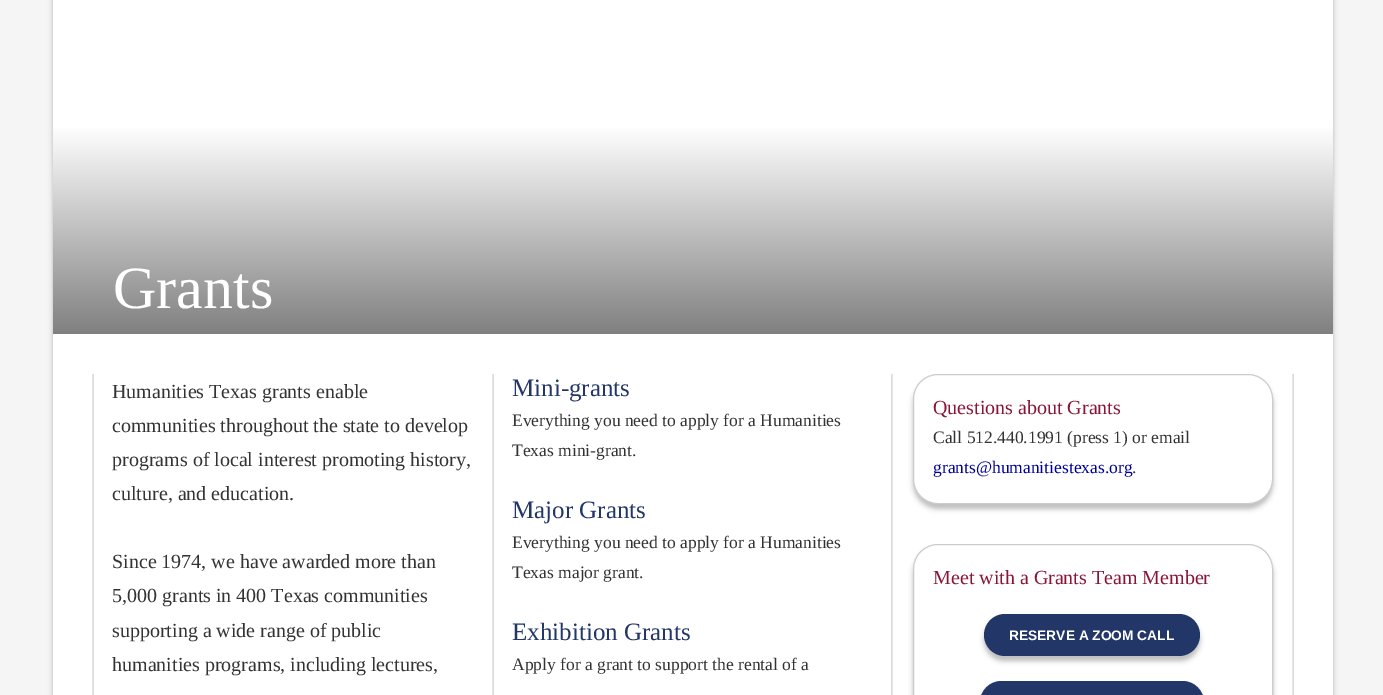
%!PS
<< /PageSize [1383 695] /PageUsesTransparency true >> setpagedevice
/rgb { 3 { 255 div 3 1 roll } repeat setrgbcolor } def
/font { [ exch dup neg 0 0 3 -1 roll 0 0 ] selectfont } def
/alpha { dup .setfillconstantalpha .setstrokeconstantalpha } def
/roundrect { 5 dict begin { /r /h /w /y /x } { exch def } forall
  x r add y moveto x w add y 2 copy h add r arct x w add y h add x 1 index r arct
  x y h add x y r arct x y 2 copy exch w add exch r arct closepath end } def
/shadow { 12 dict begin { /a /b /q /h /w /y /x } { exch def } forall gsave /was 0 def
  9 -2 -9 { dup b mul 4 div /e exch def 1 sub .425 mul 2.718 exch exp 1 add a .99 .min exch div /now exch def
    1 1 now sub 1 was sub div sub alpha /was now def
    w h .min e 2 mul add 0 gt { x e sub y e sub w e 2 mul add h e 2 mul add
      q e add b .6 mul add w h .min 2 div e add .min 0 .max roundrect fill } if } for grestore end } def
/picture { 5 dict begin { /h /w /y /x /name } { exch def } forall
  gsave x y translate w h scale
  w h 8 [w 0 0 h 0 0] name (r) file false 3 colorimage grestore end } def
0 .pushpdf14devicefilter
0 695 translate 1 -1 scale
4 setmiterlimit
245 245 245 rgb
0 0 1383 695 rectfill
0 0 0 rgb
53 -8 1280 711 0 2.5 0.25 shadow
255 255 255 rgb
53 334 1280 361 rectfill
gsave 53 0 moveto 1333 0 lineto 1333 334 lineto 53 334 lineto closepath clip newpath
<< /ShadingType 2 /ColorSpace /DeviceRGB /Coords [693 -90 693 334] /Extend [true true] /Function << /FunctionType 3 /Domain [0 1] /Functions [<< /FunctionType 2 /Domain [0 1] /C0 [1 1 1] /C1 [1 1 1] /N 1 >> << /FunctionType 2 /Domain [0 1] /C0 [1 1 1] /C1 [0.502 0.502 0.502] /N 1 >>] /Bounds [0.51] /Encode [0 1 0 1] >> >> shfill grestore
(img/1.rgb) 92 374 1202 321 picture
0 0 0 rgb
913 379 360 130 25 2.5 0.25 shadow
255 255 255 rgb
913.5 374.5 359 129 24.5 roundrect gsave fill grestore
204 204 204 rgb
stroke
0 0 0 rgb
913 549 360 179 25 2.5 0.25 shadow
255 255 255 rgb
913.5 544.5 359 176 24.5 roundrect gsave fill grestore
204 204 204 rgb
stroke
0 0 0 rgb
984 619 216 42 21 2.5 0.25 shadow
34 54 104 rgb
984 614 216 42 21 roundrect fill
0 0 0 rgb
980 686 224 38 21.5 2.5 0.25 shadow
34 54 104 rgb
980 681 224 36 21.5 roundrect fill
/LiberationSerif-Regular 60 font
255 255 255 rgb
113 308 moveto (Grants) show
/LiberationSerif-Regular 20 font
51 51 51 rgb
[
  [(Humanities Texas grants enable) 112 398]
  [(communities throughout the state to develop) 112 432]
  [(programs of local interest promoting history,) 112 466]
  [(culture, and education.) 112 500]
  [(Since 1974, we have awarded more than) 112 568]
  [(5,000 grants in 400 Texas communities) 112 602]
  [(supporting a wide range of public) 112 637]
  [(humanities programs, including lectures,) 112 671]
] { aload pop moveto show } forall
/LiberationSerif-Regular 25 font
34 54 104 rgb
512 396 moveto (Mini-grants) show
/LiberationSerif-Regular 17.5 font
51 51 51 rgb
512 426 moveto (Everything you need to apply for a Humanities) show
512 456 moveto (Texas mini-grant.) show
/LiberationSerif-Regular 25 font
34 54 104 rgb
512 518 moveto (Major Grants) show
/LiberationSerif-Regular 17.5 font
51 51 51 rgb
512 548 moveto (Everything you need to apply for a Humanities) show
512 578 moveto (Texas major grant.) show
/LiberationSerif-Regular 25 font
34 54 104 rgb
512 640 moveto (Exhibition Grants) show
/LiberationSerif-Regular 17.5 font
51 51 51 rgb
512 670 moveto (Apply for a grant to support the rental of a) show
/LiberationSerif-Regular 20 font
137 21 54 rgb
933 414 moveto (Questions about Grants) show
/LiberationSerif-Regular 17.5 font
51 51 51 rgb
933 443 moveto (Call 512.440.1991 \(press 1\) or email) show
0 0 153 rgb
933 473 moveto (grants@humanitiestexas.org) show
51 51 51 rgb
1132 473 moveto (.) show
/LiberationSerif-Regular 20 font
137 21 54 rgb
933 584 moveto (Meet with a Grants Team Member) show
/LiberationSans-Bold 13.75 font
255 255 255 rgb
1009 640 moveto (RESERVE A ZOOM CALL) show
.poppdf14devicefilter showpage
